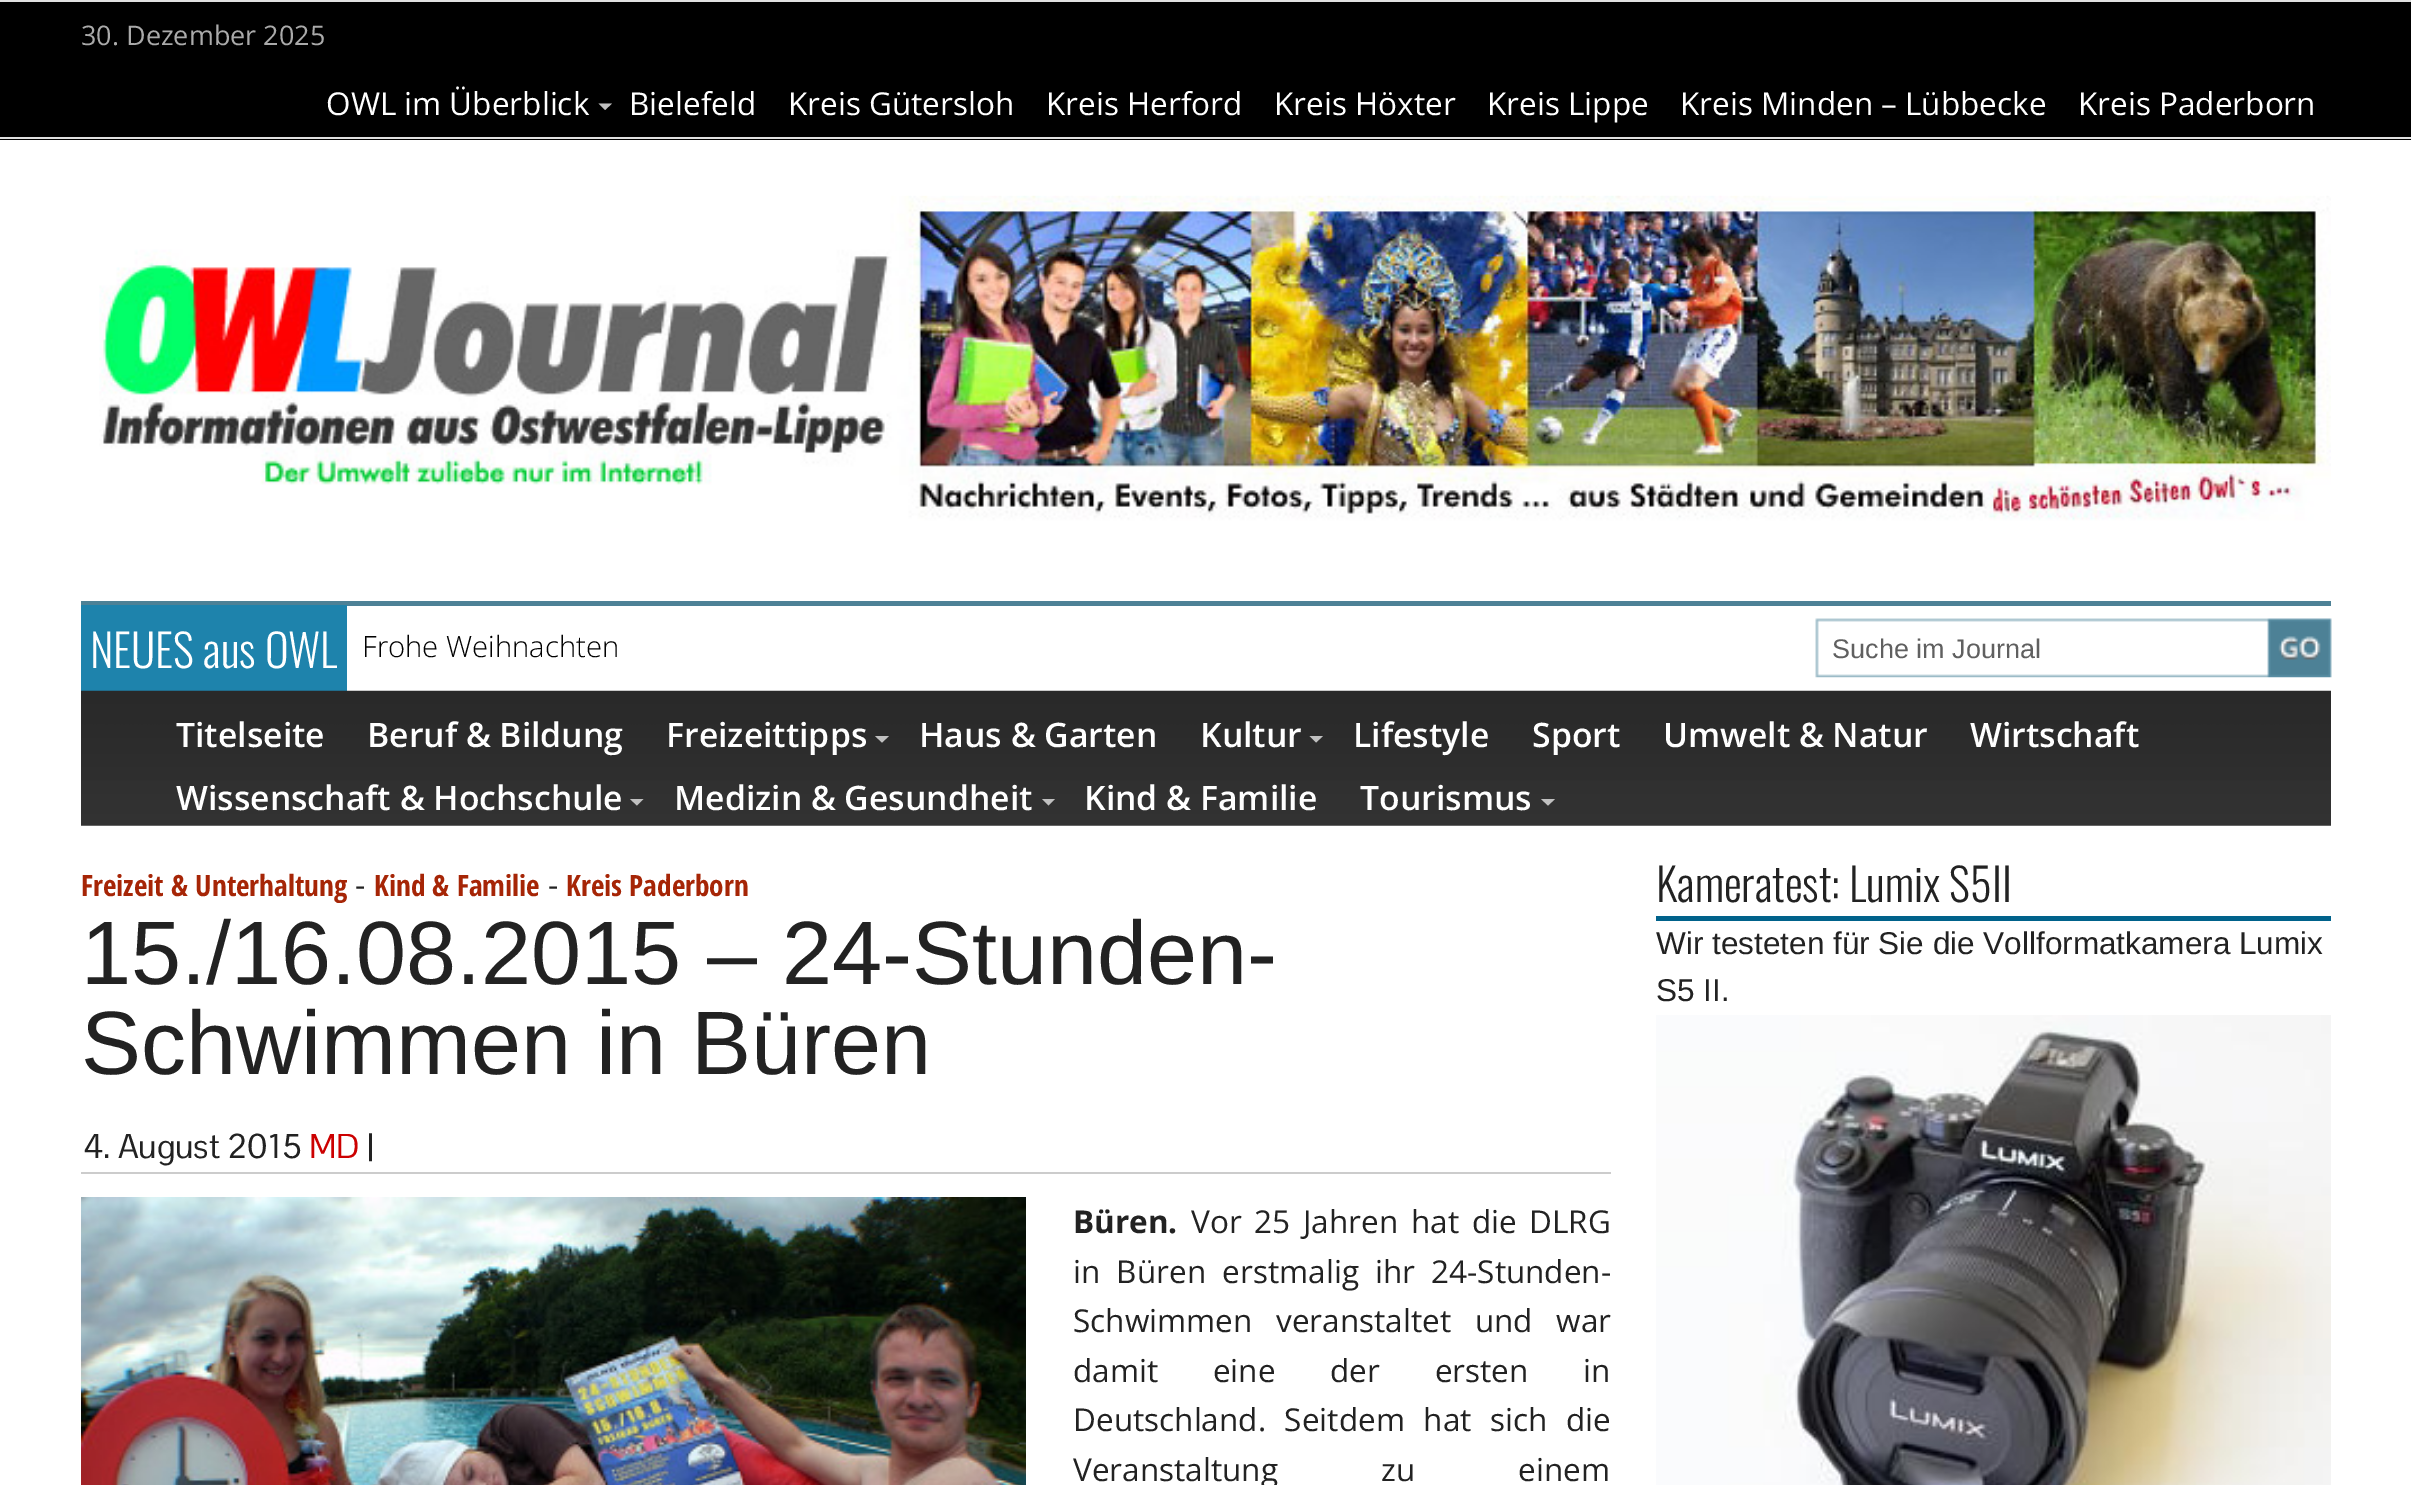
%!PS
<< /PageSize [2411 1485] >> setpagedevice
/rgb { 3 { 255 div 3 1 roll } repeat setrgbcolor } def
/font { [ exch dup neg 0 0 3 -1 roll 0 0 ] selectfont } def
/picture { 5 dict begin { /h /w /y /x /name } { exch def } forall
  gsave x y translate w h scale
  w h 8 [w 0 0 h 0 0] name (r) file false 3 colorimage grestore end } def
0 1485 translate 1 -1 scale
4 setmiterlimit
255 255 255 rgb
0 0 2411 1485 rectfill
[
  [0 2 2411 138 0 0 0]
  [0 0 2411 2 224 224 224]
  [0 137 2411 2 224 224 224]
] { aload pop rgb rectfill } forall
192 192 192 rgb
598.5 103.5 moveto 612 103.5 lineto 605 110 lineto closepath fill
(img/1.rgb) 99 195 2232 326 picture
77 129 150 rgb
81 601 2250 5 rectfill
30 131 172 rgb
81 605 266 86 rectfill
(img/2.rgb) 1815 618 517 60 picture
(img/3.rgb) 81 690 2250 136 picture
192 192 192 rgb
875 736 moveto 889 736 lineto 882 742.5 lineto closepath fill
1309.5 736 moveto 1323 736 lineto 1316 742.5 lineto closepath fill
630 799 moveto 643.5 799 lineto 637 805.5 lineto closepath fill
1042 799 moveto 1055 799 lineto 1048.5 805.5 lineto closepath fill
1541 799 moveto 1555 799 lineto 1548 805.5 lineto closepath fill
204 204 204 rgb
81 1172 1530 2 rectfill
(img/4.rgb) 81 1197 945 288 picture
0 98 139 rgb
1656 916 675 5 rectfill
(img/5.rgb) 1656 1015 675 470 picture
/OpenSans-Regular 27 font
170 170 170 rgb
81 45 moveto (30. Dezember 2025) show
/OpenSans-Regular 31.5 font
255 255 255 rgb
[
  [(OWL im Überblick) 326 115]
  [(Bielefeld) 629 115]
  [(Kreis Gütersloh) 788 115]
  [(Kreis Herford) 1046 115]
  [(Kreis Höxter) 1274 115]
  [(Kreis Lippe) 1487 115]
  [(Kreis Minden – Lübbecke) 1680 115]
  [(Kreis Paderborn) 2078 115]
] { aload pop moveto show } forall
/Oswald-Light 45 font
90 668 moveto (NEUES aus OWL) show
/OpenSans-Light 29.25 font
1 1 1 rgb
362 657 moveto (Frohe Weihnachten) show
/LiberationSans-Regular 27 font
96 96 96 rgb
1832 658 moveto (Suche im Journal) show
/OpenSans-SemiBold 33.75 font
255 255 255 rgb
[
  [(Titelseite) 176 747]
  [(Beruf & Bildung) 367 747]
  [(Freizeittipps) 666 747]
  [(Haus & Garten) 919 747]
  [(Kultur) 1200 747]
  [(Lifestyle) 1353 747]
  [(Sport) 1532 747]
  [(Umwelt & Natur) 1663 747]
  [(Wirtschaft) 1970 747]
  [(Wissenschaft & Hochschule) 176 810]
  [(Medizin & Gesundheit) 674 810]
  [(Kind & Familie) 1084 810]
  [(Tourismus) 1360 810]
] { aload pop moveto show } forall
/OpenSansCondensed-Bold 29.25 font
166 37 6 rgb
81 896 moveto (Freizeit & Unterhaltung) show
/OpenSans-Regular 31.5 font
34 34 34 rgb
355 896 moveto (-) show
/OpenSansCondensed-Bold 29.25 font
166 37 6 rgb
374 896 moveto (Kind & Familie) show
/OpenSans-Regular 31.5 font
34 34 34 rgb
548 896 moveto (-) show
/OpenSansCondensed-Bold 29.25 font
166 37 6 rgb
566 896 moveto (Kreis Paderborn) show
/LiberationSans-Regular 90 font
34 34 34 rgb
81 984 moveto (15./16.08.2015 – 24-Stunden-) show
81 1074 moveto (Schwimmen in Büren) show
/PontanoSans-Regular 33.75 font
83 1158 moveto (4. August 2015) show
204 0 0 rgb
309 1158 moveto (MD) show
34 34 34 rgb
367 1158 moveto (|) show
/OpenSans-Bold 31.5 font
1073 1233 moveto (Büren.) show
/OpenSans-Regular 31.5 font
1191 1233 moveto 4.5 0 32 (Vor 25 Jahren hat die DLRG) widthshow
1073 1283 moveto 8 0 32 (in Büren erstmalig ihr 24-Stunden-) widthshow
1073 1332 moveto 15.5 0 32 (Schwimmen veranstaltet und war) widthshow
1073 1382 moveto 46.5 0 32 (damit eine der ersten in) widthshow
1073 1431 moveto 10.5 0 32 (Deutschland. Seitdem hat sich die) widthshow
1073 1481 moveto 95 0 32 (Veranstaltung zu einem) widthshow
/Oswald-Light 45 font
1656 902 moveto (Kameratest: Lumix S5II) show
/LiberationSans-Regular 31.5 font
1656 954 moveto (Wir testeten für Sie die Vollformatkamera Lumix) show
1656 1001 moveto (S5 II.) show
showpage
